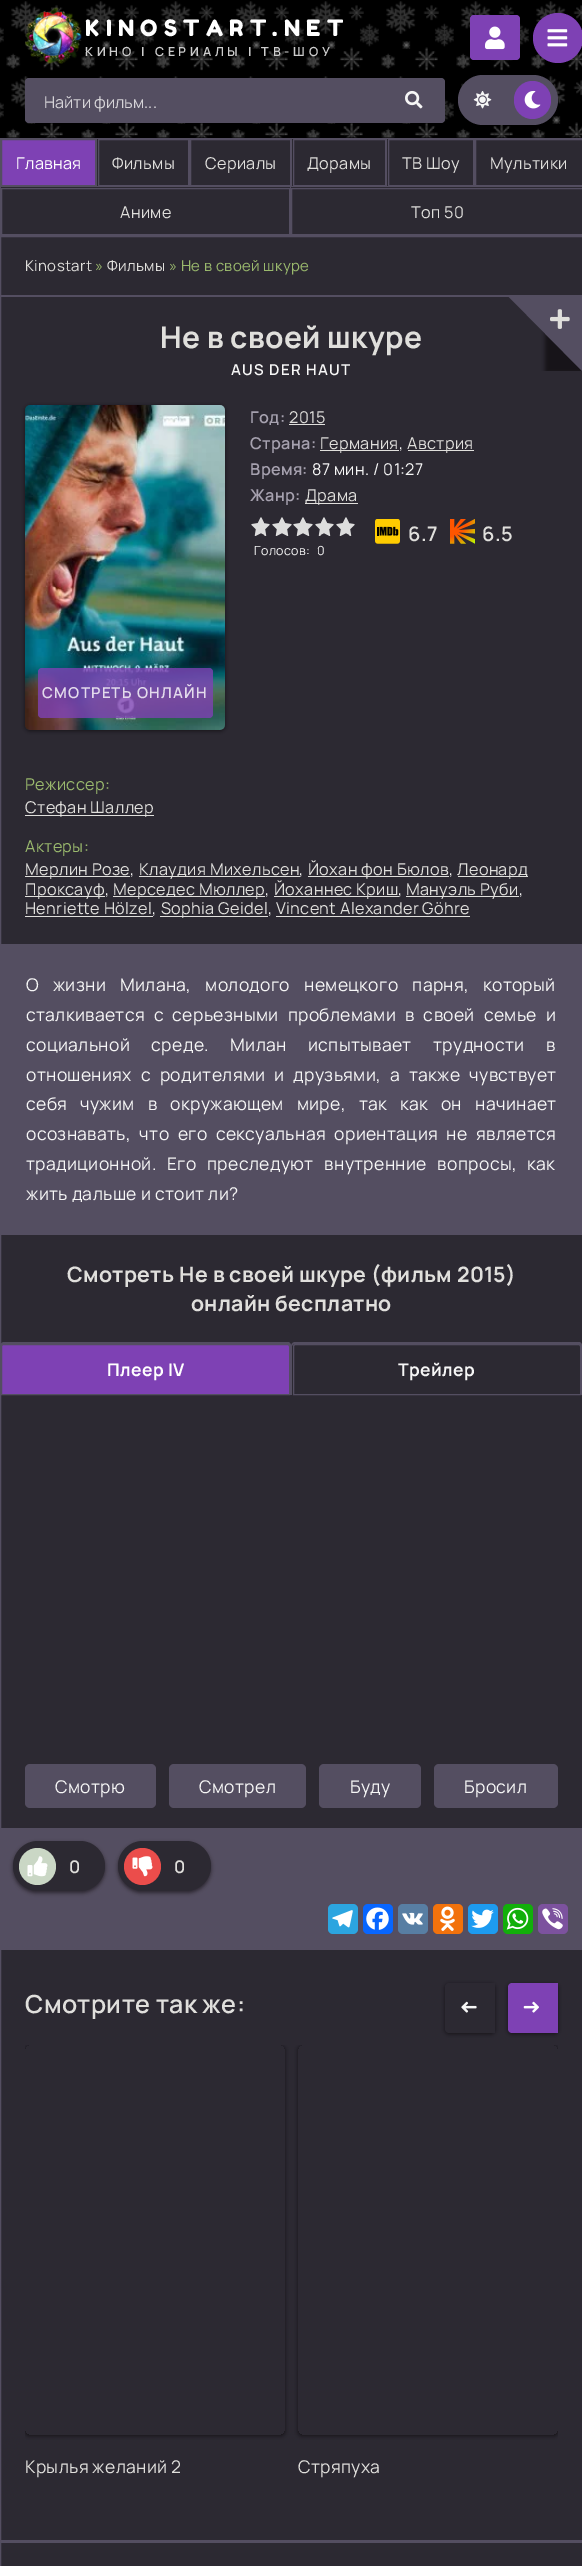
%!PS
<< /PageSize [582 2566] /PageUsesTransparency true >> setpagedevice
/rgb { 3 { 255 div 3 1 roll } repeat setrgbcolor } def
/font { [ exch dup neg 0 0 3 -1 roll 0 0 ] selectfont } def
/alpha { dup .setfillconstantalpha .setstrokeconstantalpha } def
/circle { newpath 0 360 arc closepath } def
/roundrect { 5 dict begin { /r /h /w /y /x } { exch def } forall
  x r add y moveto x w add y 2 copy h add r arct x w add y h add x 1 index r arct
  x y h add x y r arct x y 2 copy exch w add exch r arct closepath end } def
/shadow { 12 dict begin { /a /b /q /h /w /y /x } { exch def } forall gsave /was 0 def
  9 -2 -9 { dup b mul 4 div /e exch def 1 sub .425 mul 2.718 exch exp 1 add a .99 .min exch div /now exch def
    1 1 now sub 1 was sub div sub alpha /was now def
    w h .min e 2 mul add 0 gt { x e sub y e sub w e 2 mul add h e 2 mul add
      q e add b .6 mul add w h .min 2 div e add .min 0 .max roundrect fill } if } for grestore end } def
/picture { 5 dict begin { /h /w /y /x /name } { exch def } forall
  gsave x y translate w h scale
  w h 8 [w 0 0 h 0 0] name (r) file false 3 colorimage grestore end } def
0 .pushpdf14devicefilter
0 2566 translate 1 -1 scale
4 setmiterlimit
0 0 0 rgb
0 0 582 2566 rectfill
(img/1.rgb) 0 1 582 137 picture
(img/2.rgb) 25 7 57 57 picture
126 65 180 rgb
470 15 50 45 4 roundrect fill
(img/3.rgb) 485 26 20 24 picture
558 38 25 circle fill
(img/4.rgb) 547 29 21 18 picture
84 78 97 rgb
25 78 420 45 4 roundrect fill
(img/5.rgb) 405 90 18 19 picture
458 75 100 50 25 roundrect fill
(img/6.rgb) 473 91 19 18 picture
126 65 180 rgb
514 81 37 38 18.5 roundrect fill
(img/7.rgb) 524 90 17 19 picture
1.5 139.5 moveto 95.5 139.5 lineto 95.5 185.5 lineto 1.5 185.5 lineto closepath gsave fill grestore
84 78 97 rgb
stroke
[
  [0 138 582 1 84 78 97]
  [0 138 1 48 84 78 97]
  [97 139 91 47 44 41 50]
] { aload pop rgb rectfill } forall
84 78 97 rgb
98.5 139.5 90 46 rectstroke
96 138 1 48 rectfill
44 41 50 rgb
190.5 139.5 moveto 290.5 139.5 lineto 290.5 185.5 lineto 190.5 185.5 lineto closepath gsave fill grestore
84 78 97 rgb
stroke
189 138 1 48 rectfill
44 41 50 rgb
292 139 93 47 rectfill
84 78 97 rgb
293.5 139.5 92 46 rectstroke
291 138 1 48 rectfill
44 41 50 rgb
387 139 86 47 rectfill
84 78 97 rgb
388.5 139.5 85 46 rectstroke
386 138 1 48 rectfill
44 41 50 rgb
475.5 139.5 moveto 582.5 139.5 lineto 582.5 185.5 lineto 475.5 185.5 lineto closepath gsave fill grestore
84 78 97 rgb
stroke
474 138 1 48 rectfill
44 41 50 rgb
1 187 289 47 rectfill
84 78 97 rgb
1.5 188.5 288 46 rectstroke
[
  [0 186 582 1 84 78 97]
  [0 186 1 49 84 78 97]
  [291 187 291 47 44 41 50]
] { aload pop rgb rectfill } forall
84 78 97 rgb
291.5 188.5 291 46 rectstroke
290 186 1 49 rectfill
44 41 50 rgb
0.5 236.5 moveto 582.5 236.5 lineto 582.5 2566.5 lineto 0.5 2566.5 lineto closepath gsave fill grestore
84 78 97 rgb
stroke
[
  [0 235 582 1 84 78 97]
  [0 296 509 1 84 78 97]
  [0 295 582 1 84 78 97]
] { aload pop rgb rectfill } forall
gsave
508 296 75 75 rectclip
0 0 0 rgb
545 298 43 75 0 2 0.5 shadow
grestore
508 296 moveto 582 296 lineto 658 371 lineto 582 371 lineto closepath fill
(img/8.rgb) 550 309 20 20 picture
[
  [289 424 36 1 224 223 220]
  [320 450 79 1 224 223 220]
  [408 450 66 1 224 223 220]
  [305 503 53 1 224 223 220]
] { aload pop rgb rectfill } forall
(img/9.rgb) 375 519 25 25 picture
(img/10.rgb) 450 519 25 25 picture
(img/11.rgb) 251 517 104 19 picture
0 0 0 rgb
25 406 200 325 5 2 0.5 shadow
(img/12.rgb) 25 405 200 325 picture
0.8 alpha
126 65 180 rgb
38 668 175 50 4 roundrect fill
1 alpha
[
  [25 815 129 1 224 223 220]
  [25 876 105 1 224 223 220]
  [139 876 161 1 224 223 220]
  [308 876 141 1 224 223 220]
  [458 876 70 1 224 223 220]
  [25 896 80 1 224 223 220]
  [113 896 152 1 224 223 220]
  [274 896 125 1 224 223 220]
  [406 896 113 1 224 223 220]
  [25 916 128 1 224 223 220]
  [160 916 108 1 224 223 220]
  [276 916 194 1 224 223 220]
  [1 944 581 291 84 78 97]
] { aload pop rgb rectfill } forall
126 65 180 rgb
4 1343 moveto 287 1343 lineto 289 1343 291 1345 291 1347 curveto 291 1395 lineto 0 1395 lineto 0 1347 lineto 0 1345 2 1343 4 1343 curveto closepath fill
84 78 97 rgb
3.5 1344.5 moveto 287.5 1344.5 lineto 288.5 1344.5 289.5 1345.5 289.5 1346.5 curveto 289.5 1394.5 lineto 1.5 1394.5 lineto 1.5 1346.5 lineto 1.5 1345.5 2.5 1344.5 3.5 1344.5 curveto closepath stroke
4 1342 moveto 288 1342 lineto 290 1342 291 1344 291 1346 curveto 291 1395 lineto 0 1395 lineto 0 1346 lineto 0 1344 2 1342 4 1342 curveto closepath 4 1344 moveto 288 1344 lineto 289 1344 290 1345 290 1346 curveto 290 1395 lineto 1 1395 lineto 1 1346 lineto 1 1345 2 1344 4 1344 curveto closepath eofill
295.5 1344.5 moveto 578.5 1344.5 lineto 579.5 1344.5 580.5 1345.5 580.5 1346.5 curveto 580.5 1394.5 lineto 293.5 1394.5 lineto 293.5 1346.5 lineto 293.5 1345.5 294.5 1344.5 295.5 1344.5 curveto closepath stroke
295 1342 moveto 579 1342 lineto 581 1342 582 1344 582 1346 curveto 582 1395 lineto 291 1395 lineto 291 1346 lineto 291 1344 293 1342 295 1342 curveto closepath 295 1344 moveto 579 1344 lineto 580 1344 581 1345 581 1346 curveto 581 1395 lineto 292 1395 lineto 292 1346 lineto 292 1345 294 1344 295 1344 curveto closepath eofill
25 1764 131 44 5 roundrect fill
169 1764 137 44 5 roundrect fill
319 1764 102 44 5 roundrect fill
434 1764 124 44 5 roundrect fill
0 1948 moveto 0 1949 lineto 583 1949 lineto 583 1829 lineto 582 1829 lineto 582 1948 lineto closepath fill
1 1828 581 120 rectfill
0 0 0 rgb
13 1843 92 50 25 2 0.5 shadow
44 41 50 rgb
13 1841 92 50 25 roundrect fill
202 215 197 rgb
37.5 1866.5 18.5 circle fill
(img/13.rgb) 27 1856 21 21 picture
0 0 0 rgb
118 1843 93 50 25 2 0.5 shadow
44 41 50 rgb
118 1841 93 50 25 roundrect fill
235 77 75 rgb
142.5 1866.5 18.5 circle fill
(img/14.rgb) 132 1856 21 21 picture
44 165 224 rgb
328 1904 30 30 5 roundrect fill
(img/15.rgb) 332 1910 21 18 picture
8 102 255 rgb
363 1904 30 30 5 roundrect fill
(img/16.rgb) 366 1907 23 23 picture
88 126 163 rgb
398 1904 30 30 5 roundrect fill
(img/17.rgb) 402 1912 21 13 picture
242 114 12 rgb
433 1904 30 30 5 roundrect fill
(img/18.rgb) 440 1906 15 25 picture
29 155 240 rgb
468 1904 30 30 5 roundrect fill
(img/19.rgb) 471 1909 23 19 picture
18 175 10 rgb
503 1904 30 30 5 roundrect fill
(img/20.rgb) 506 1907 23 23 picture
124 82 158 rgb
538 1904 30 30 5 roundrect fill
(img/21.rgb) 542 1908 21 22 picture
84 78 97 rgb
0 2541 moveto 0 2543 lineto 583 2543 lineto 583 1949 lineto 582 1949 lineto 582 2541 lineto closepath fill
0 1949 582 1 rectfill
0 2540 582 1 rectfill
0 0 0 rgb
445 1984 50 50 4 2 0.5 shadow
44 41 50 rgb
449 1983 moveto 495 1983 lineto 495 2033 lineto 449 2033 lineto 447 2033 445 2031 445 2029 curveto 445 1987 lineto 445 1985 447 1983 449 1983 curveto closepath fill
(img/22.rgb) 461 2001 16 12 picture
0 0 0 rgb
508 1984 50 50 4 2 0.5 shadow
126 65 180 rgb
512 1983 moveto 558 1983 lineto 558 2033 lineto 512 2033 lineto 510 2033 508 2031 508 2029 curveto 508 1987 lineto 508 1985 510 1983 512 1983 curveto closepath fill
(img/23.rgb) 523 2001 16 12 picture
gsave
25 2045 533 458 rectclip
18 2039 moveto 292 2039 lineto 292 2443 lineto 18 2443 lineto closepath 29 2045 moveto 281 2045 lineto 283 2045 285 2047 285 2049 curveto 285 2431 lineto 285 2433 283 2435 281 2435 curveto 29 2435 lineto 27 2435 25 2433 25 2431 curveto 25 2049 lineto 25 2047 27 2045 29 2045 curveto closepath eoclip newpath
0 0 0 rgb
25 2046 260 390 4 2 0.5 shadow
grestore
gsave
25 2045 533 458 rectclip
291 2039 moveto 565 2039 lineto 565 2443 lineto 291 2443 lineto closepath 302 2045 moveto 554 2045 lineto 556 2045 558 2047 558 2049 curveto 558 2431 lineto 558 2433 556 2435 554 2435 curveto 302 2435 lineto 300 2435 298 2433 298 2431 curveto 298 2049 lineto 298 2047 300 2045 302 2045 curveto closepath eoclip newpath
0 0 0 rgb
298 2046 260 390 4 2 0.5 shadow
grestore
/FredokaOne-Regular 22.5 font
255 255 255 rgb
85 36 moveto 6.25 0 (KINOSTART.NET) ashow
/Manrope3-ExtraLight 12.5 font
205 205 205 rgb
85 56 moveto 3.75 0 (КИНО | СЕРИАЛЫ | ТВ-ШОУ) ashow
/Manrope-ExtraLight 16.25 font
214 212 216 rgb
44 108 moveto (Найти фильм...) show
255 255 255 rgb
16 169 moveto 0.35 0 (Главная) ashow
224 223 220 rgb
112 169 moveto 0.35 0 (Фильмы) ashow
205 169 moveto 0.35 0 (Сериалы) ashow
307 169 moveto 0.35 0 (Дорамы) ashow
402 169 moveto 0.35 0 (ТВ Шоу) ashow
490 169 moveto 0.35 0 (Мультики) ashow
120 218 moveto 0.35 0 (Аниме) ashow
411 218 moveto 0.35 0 (Топ 50) ashow
/Manrope-ExtraLight 15 font
25 271 moveto 0.35 0 (Kinostart) ashow
154 185 109 rgb
95 271 moveto 0.35 0 (») ashow
224 223 220 rgb
107 271 moveto 0.35 0 (Фильмы) ashow
154 185 109 rgb
169 271 moveto 0.35 0 (» Не в своей шкуре) ashow
/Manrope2-ExtraLight 30 font
224 223 220 rgb
160 348 moveto 0.35 0 (Не в своей шкуре) ashow
/Manrope3-ExtraLight 15 font
246 246 246 rgb
231 375 moveto 1.25 0 (AUS DER HAUT) ashow
/Manrope3-ExtraLight 16.25 font
166 161 175 rgb
250 423 moveto 0.35 0 (Год:) ashow
/Manrope-ExtraLight 16.25 font
224 223 220 rgb
289 423 moveto 0.35 0 (2015) ashow
/Manrope3-ExtraLight 16.25 font
166 161 175 rgb
250 449 moveto 0.35 0 (Страна:) ashow
/Manrope-ExtraLight 16.25 font
224 223 220 rgb
320 449 moveto 0.35 0 (Германия) ashow
246 246 246 rgb
399 449 moveto 0.35 0 (,) ashow
224 223 220 rgb
407 449 moveto 0.35 0 (Австрия) ashow
/Manrope3-ExtraLight 16.25 font
166 161 175 rgb
250 475 moveto 0.35 0 (Время:) ashow
/Manrope-ExtraLight 16.25 font
246 246 246 rgb
312 475 moveto 0.35 0 (87 мин. / 01:27) ashow
/Manrope3-ExtraLight 16.25 font
166 161 175 rgb
250 501 moveto 0.35 0 (Жанр:) ashow
/Manrope-ExtraLight 16.25 font
224 223 220 rgb
305 501 moveto 0.35 0 (Драма) ashow
/Manrope3-ExtraLight 20 font
408 541 moveto 0.35 0 (6.7) ashow
482 541 moveto 0.35 0 (6.5) ashow
/Manrope-ExtraLight 12.5 font
246 246 246 rgb
254 555 moveto 0.35 0 (Голосов:) ashow
317 555 moveto 0.35 0 (0) ashow
/Manrope3-ExtraLight 15 font
227 219 236 rgb
42 698 moveto 1.25 0 (СМОТРЕТЬ ОНЛАЙН) ashow
/Manrope-ExtraLight 16.25 font
154 185 109 rgb
25 790 moveto 0.35 0 (Режиссер:) ashow
224 223 220 rgb
25 813 moveto 0.35 0 (Стефан Шаллер) ashow
154 185 109 rgb
25 852 moveto 0.35 0 (Актеры:) ashow
224 223 220 rgb
25 875 moveto 0.35 0 (Мерлин Розе) ashow
246 246 246 rgb
130 875 moveto 0.35 0 (,) ashow
224 223 220 rgb
139 875 moveto 0.35 0 (Клаудия Михельсен) ashow
246 246 246 rgb
299 875 moveto 0.35 0 (,) ashow
224 223 220 rgb
308 875 moveto 0.35 0 (Йохан фон Бюлов) ashow
246 246 246 rgb
449 875 moveto 0.35 0 (,) ashow
224 223 220 rgb
457 875 moveto 0.35 0 (Леонард) ashow
25 895 moveto 0.35 0 (Проксауф) ashow
246 246 246 rgb
105 895 moveto 0.35 0 (,) ashow
224 223 220 rgb
113 895 moveto 0.35 0 (Мерседес Мюллер) ashow
246 246 246 rgb
265 895 moveto 0.35 0 (,) ashow
224 223 220 rgb
274 895 moveto 0.35 0 (Йоханнес Криш) ashow
246 246 246 rgb
398 895 moveto 0.35 0 (,) ashow
224 223 220 rgb
406 895 moveto 0.35 0 (Мануэль Руби) ashow
246 246 246 rgb
519 895 moveto 0.35 0 (,) ashow
224 223 220 rgb
25 914 moveto 0.35 0 (Henriette Hölzel) ashow
246 246 246 rgb
152 914 moveto 0.35 0 (,) ashow
224 223 220 rgb
161 914 moveto 0.35 0 (Sophia Geidel) ashow
246 246 246 rgb
268 914 moveto 0.35 0 (,) ashow
224 223 220 rgb
276 914 moveto 0.35 0 (Vincent Alexander Göhre) ashow
/Manrope-ExtraLight 17.5 font
246 246 246 rgb
26 991 moveto 10 0 32 0.35 0 (О жизни Милана, молодого немецкого парня, который) awidthshow
26 1021 moveto 5 0 32 0.35 0 (сталкивается с серьезными проблемами в своей семье и) awidthshow
26 1051 moveto 17.5 0 32 0.35 0 (социальной среде. Милан испытывает трудности в) awidthshow
26 1081 moveto 5 0 32 0.35 0 (отношениях с родителями и друзьями, а также чувствует) awidthshow
26 1110 moveto 9 0 32 0.35 0 (себя чужим в окружающем мире, так как он начинает) awidthshow
26 1140 moveto 4.5 0 32 0.35 0 (осознавать, что его сексуальная ориентация не является) awidthshow
26 1170 moveto 6.75 0 32 0.35 0 (традиционной. Его преследуют внутренние вопросы, как) awidthshow
26 1200 moveto 0.35 0 (жить дальше и стоит ли?) ashow
/Manrope2-ExtraLight 21.25 font
224 223 220 rgb
67 1282 moveto 0.35 0 (Смотреть Не в своей шкуре \(фильм 2015\)) ashow
191 1311 moveto 0.35 0 (онлайн бесплатно) ashow
/Manrope2-ExtraLight 17.5 font
255 255 255 rgb
107 1376 moveto 0.35 0 (Плеер IV) ashow
246 246 246 rgb
398 1376 moveto 0.35 0 (Трейлер) ashow
/Manrope-ExtraLight 17.5 font
55 1793 moveto 0.35 0 (Смотрю) ashow
199 1793 moveto 0.35 0 (Смотрел) ashow
350 1793 moveto 0.35 0 (Буду) ashow
464 1793 moveto 0.35 0 (Бросил) ashow
/Manrope3-ExtraLight 17.5 font
224 223 220 rgb
69 1873 moveto 0.35 0 (0) ashow
174 1873 moveto 0.35 0 (0) ashow
/Manrope3-ExtraLight 25 font
25 2013 moveto 0.35 0 (Смотрите так же:) ashow
/Manrope-ExtraLight 17.5 font
25 2473 moveto 0.35 0 (Крылья желаний 2) ashow
298 2473 moveto 0.35 0 (Стряпуха) ashow
.poppdf14devicefilter showpage
